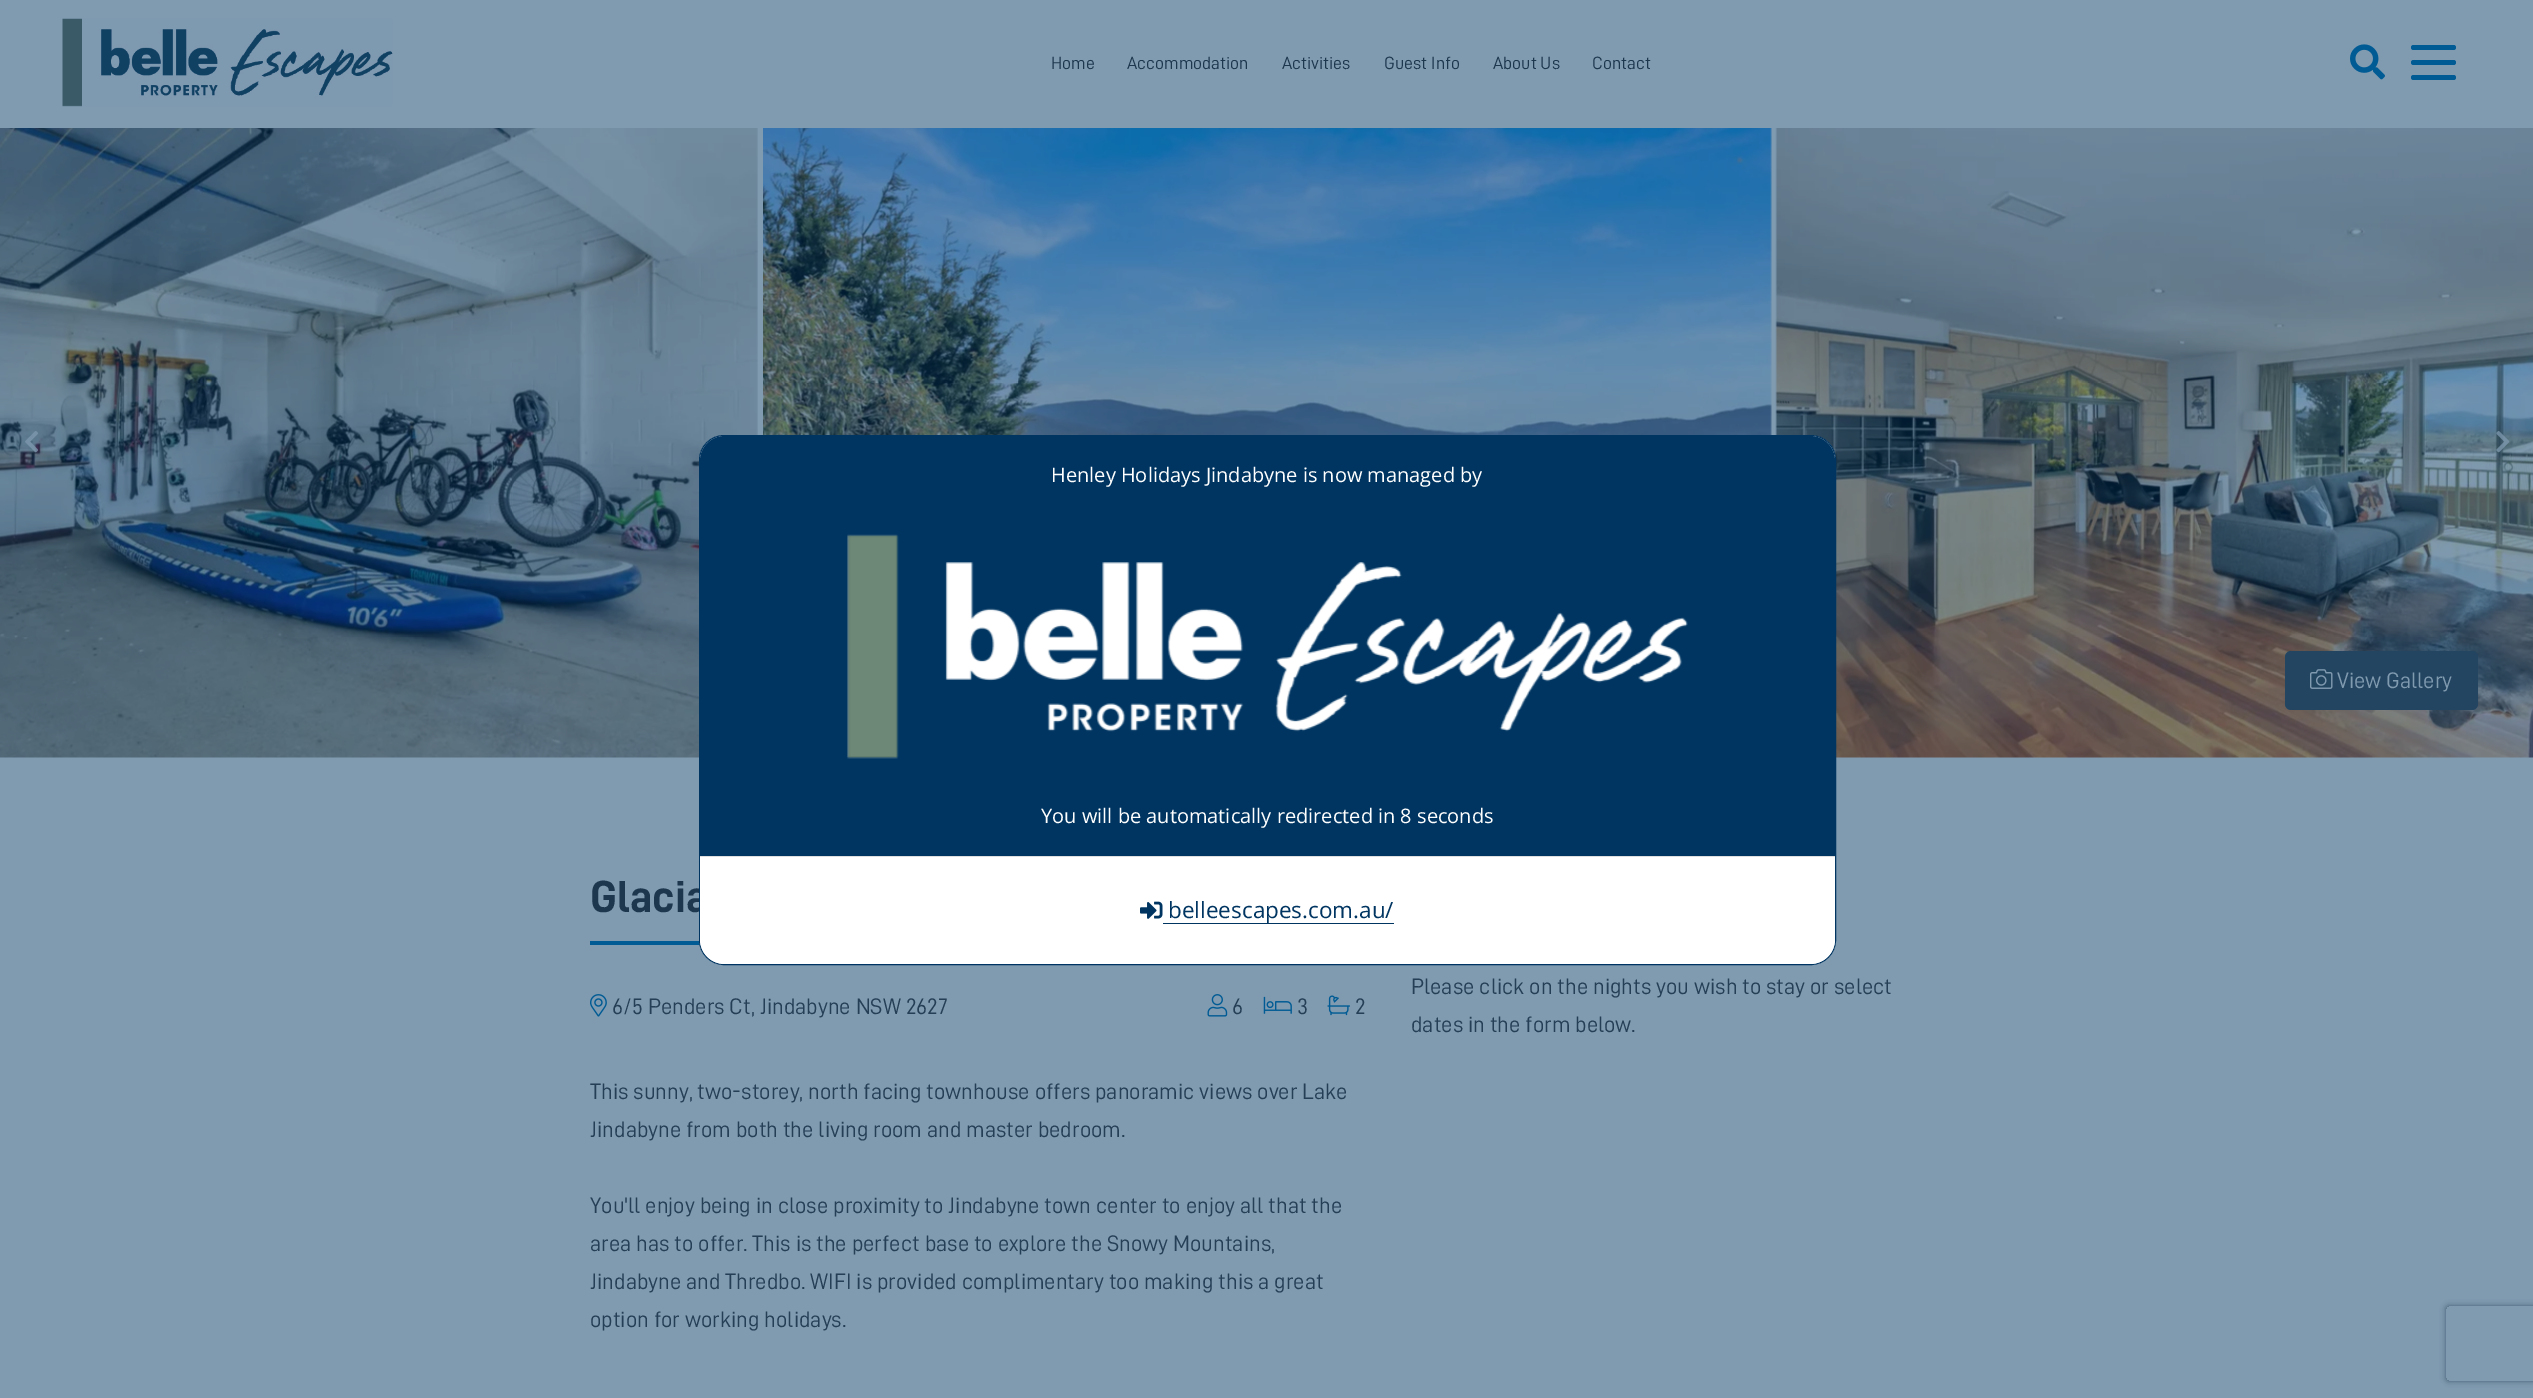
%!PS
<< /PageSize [2533 1398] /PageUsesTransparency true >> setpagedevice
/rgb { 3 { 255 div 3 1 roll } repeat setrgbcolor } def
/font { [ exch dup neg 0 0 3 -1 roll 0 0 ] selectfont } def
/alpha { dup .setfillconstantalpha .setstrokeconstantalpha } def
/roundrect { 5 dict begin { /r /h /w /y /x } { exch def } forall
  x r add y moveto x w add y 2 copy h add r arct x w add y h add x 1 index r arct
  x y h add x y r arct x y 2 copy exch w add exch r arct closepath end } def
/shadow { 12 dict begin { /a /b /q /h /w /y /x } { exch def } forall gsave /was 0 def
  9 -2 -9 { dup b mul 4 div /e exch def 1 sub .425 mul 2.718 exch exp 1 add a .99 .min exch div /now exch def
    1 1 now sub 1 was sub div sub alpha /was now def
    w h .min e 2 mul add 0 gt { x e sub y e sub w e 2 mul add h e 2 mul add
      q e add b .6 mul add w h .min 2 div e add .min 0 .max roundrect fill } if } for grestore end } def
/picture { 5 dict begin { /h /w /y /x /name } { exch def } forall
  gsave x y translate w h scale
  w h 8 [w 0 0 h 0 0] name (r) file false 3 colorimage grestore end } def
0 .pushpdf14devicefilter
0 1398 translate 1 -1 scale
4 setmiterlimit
128 154 176 rgb
0 0 2533 1398 rectfill
(img/1.rgb) 62 18 331 89 picture
(img/2.rgb) 2350 44 35 36 picture
0 91 148 rgb
2411 45 45 5 2.5 roundrect fill
2411 60 45 5 2.5 roundrect fill
2411 75 45 5 2.5 roundrect fill
(img/3.rgb) 0 128 758 630 picture
(img/4.rgb) 763 128 1009 307 picture
(img/5.rgb) 1775 128 758 630 picture
(img/6.rgb) 25 431 13 22 picture
(img/7.rgb) 2496 431 14 22 picture
35 69 97 rgb
2285 651 193 59 6 roundrect fill
(img/8.rgb) 2310 669 23 20 picture
0 91 148 rgb
590 941 110 4 rectfill
(img/9.rgb) 590 994 17 23 picture
(img/10.rgb) 1207 994 21 23 picture
(img/11.rgb) 1263 996 29 18 picture
(img/12.rgb) 1327 995 23 21 picture
gsave
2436 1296 moveto 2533 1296 lineto 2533 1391 lineto 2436 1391 lineto closepath 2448.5 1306 moveto 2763.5 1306 lineto 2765 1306 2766 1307 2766 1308.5 curveto 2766 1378.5 lineto 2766 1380 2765 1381 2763.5 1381 curveto 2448.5 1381 lineto 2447 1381 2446 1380 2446 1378.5 curveto 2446 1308.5 lineto 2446 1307 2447 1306 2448.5 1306 curveto closepath eoclip newpath
64 91 113 rgb
2446 1306 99 75 2.5 3 1 shadow
grestore
/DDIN-Regular 17.75 font
29 56 78 rgb
[
  [(Home) 1051 69]
  [(Accommodation) 1127 69]
  [(Activities) 1282 69]
  [(Guest Info) 1384 69]
  [(About Us) 1493 69]
  [(Contact) 1592 69]
] { aload pop moveto show } forall
/DDIN-Regular 22.5 font
128 154 176 rgb
2337 688 moveto (View Gallery) show
/DDIN-Bold 45 font
29 56 78 rgb
590 912 moveto (Glacia) show
/DDIN-Regular 22.5 font
37 64 86 rgb
[
  [(6/5 Penders Ct, Jindabyne NSW 2627) 612 1014]
  [(6) 1232 1014]
  [(3) 1297 1014]
  [(2) 1355 1014]
  [(This sunny, two-storey, north facing townhouse offers panoramic views over Lake) 590 1099]
  [(Jindabyne from both the living room and master bedroom.) 590 1137]
  [(You'll enjoy being in close proximity to Jindabyne town center to enjoy all that the) 590 1213]
  [(area has to offer. This is the perfect base to explore the Snowy Mountains,) 590 1251]
  [(Jindabyne and Thredbo. WIFI is provided complimentary too making this a great) 590 1289]
  [(option for working holidays.) 590 1327]
  [(Please click on the nights you wish to stay or select) 1411 994]
  [(dates in the form below.) 1411 1032]
] { aload pop moveto show } forall
255 255 255 rgb
699.5 435.5 1136 529 24.5 roundrect gsave fill grestore
0 53 97 rgb
stroke
725 436 moveto 1810 436 lineto 1824 436 1835 447 1835 461 curveto 1835 856 lineto 700 856 lineto 700 461 lineto 700 447 711 436 725 436 curveto closepath fill
/OpenSans-Regular 20 font
255 255 255 rgb
1051 482 moveto (Henley Holidays Jindabyne is now managed by) show
(img/13.rgb) 847 534 841 225 picture
1041 823 moveto (You will be automatically redirected in 8 seconds) show
700 856 moveto 1835 856 lineto 1835 939 lineto 1835 953 1824 964 1810 964 curveto 725 964 lineto 711 964 700 953 700 939 curveto closepath fill
223 223 223 rgb
700 856 1135 1 rectfill
(img/14.rgb) 1140 901 23 18 picture
0 53 97 rgb
1163 923 231 1 rectfill
/OpenSans-Regular 22.5 font
1168 918 moveto (belleescapes.com.au/) show
.poppdf14devicefilter showpage
